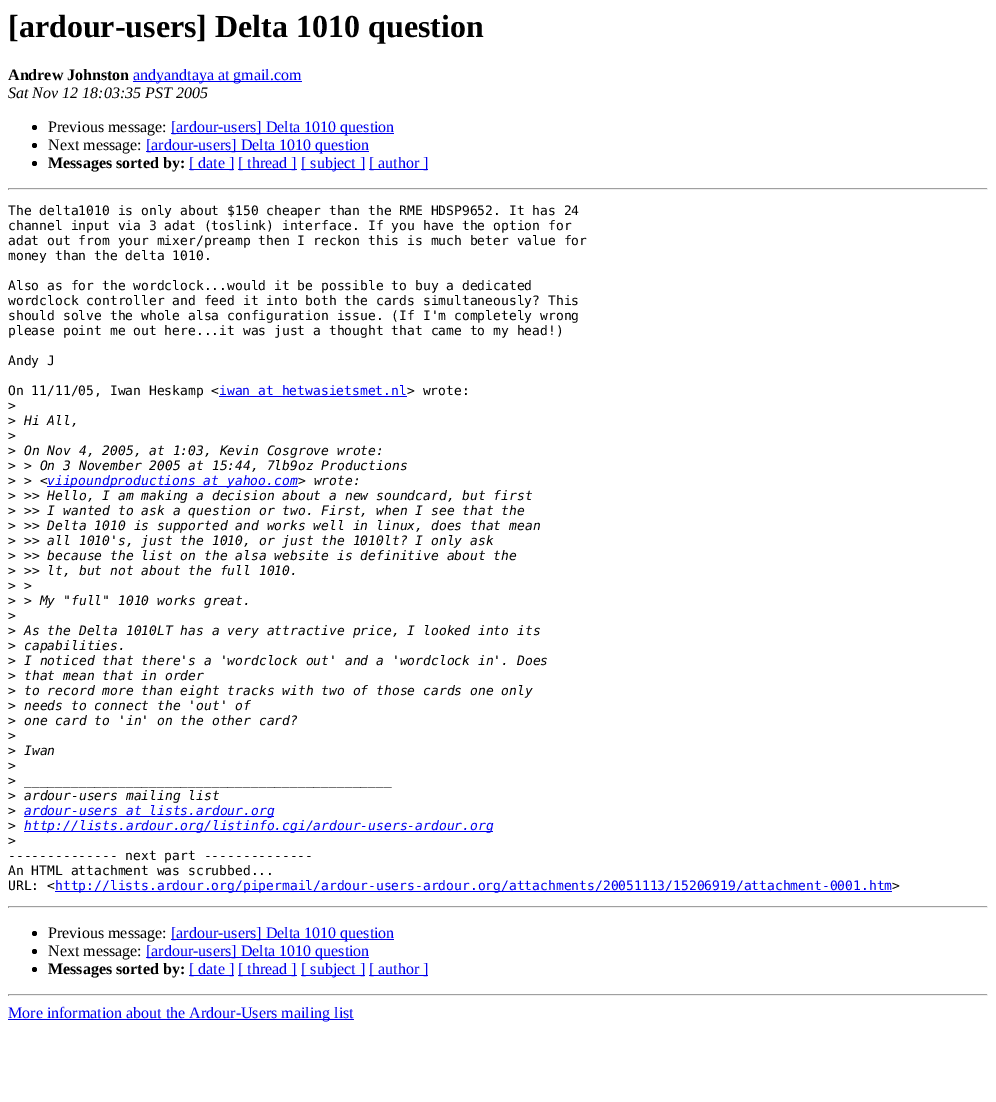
%!PS
<< /PageSize [996 1102] >> setpagedevice
/rgb { 3 { 255 div 3 1 roll } repeat setrgbcolor } def
/font { [ exch dup neg 0 0 3 -1 roll 0 0 ] selectfont } def
/circle { newpath 0 360 arc closepath } def
0 1102 translate 1 -1 scale
4 setmiterlimit
255 255 255 rgb
0 0 996 1102 rectfill
0 0 238 rgb
133 81 169 1 rectfill
0 0 0 rgb
34.5 127.5 2.5 circle fill
0 0 238 rgb
171 133 223 1 rectfill
0 0 0 rgb
34.5 145.5 2.5 circle fill
0 0 238 rgb
146 151 223 1 rectfill
0 0 0 rgb
34.5 163.5 2.5 circle fill
[
  [189 169 45 1 0 0 238]
  [238 169 59 1 0 0 238]
  [301 169 64 1 0 0 238]
  [369 169 59 1 0 0 238]
  [8 188 980 1 159 159 159]
  [987 188 1 2 238 238 238]
  [8 189 980 1 238 238 238]
  [8 188 1 2 159 159 159]
  [219 396 188 1 0 0 238]
  [47 486 251 1 0 0 238]
  [24 816 250 1 0 0 238]
  [24 831 469 1 0 0 238]
  [55 891 837 1 0 0 238]
  [8 906 980 1 159 159 159]
  [987 906 1 2 238 238 238]
  [8 907 980 1 238 238 238]
  [8 906 1 2 159 159 159]
] { aload pop rgb rectfill } forall
0 0 0 rgb
34.5 933.5 2.5 circle fill
0 0 238 rgb
171 939 223 1 rectfill
0 0 0 rgb
34.5 951.5 2.5 circle fill
0 0 238 rgb
146 957 223 1 rectfill
0 0 0 rgb
34.5 969.5 2.5 circle fill
[
  [189 975 45 1 0 0 238]
  [238 975 59 1 0 0 238]
  [301 975 64 1 0 0 238]
  [369 975 59 1 0 0 238]
  [8 994 980 1 159 159 159]
  [987 994 1 2 238 238 238]
  [8 995 980 1 238 238 238]
  [8 994 1 2 159 159 159]
  [8 1019 346 1 0 0 238]
] { aload pop rgb rectfill } forall
/LiberationSerif-Bold 32 font
0 0 0 rgb
8 37 moveto ([ardour-users] Delta 1010 question) show
/LiberationSerif-Bold 16 font
8 80 moveto (Andrew Johnston) show
/LiberationSerif-Regular 16 font
0 0 238 rgb
133 80 moveto (andyandtaya at gmail.com) show
/LiberationSerif-Italic 16 font
0 0 0 rgb
8 98 moveto (Sat Nov 12 18:03:35 PST 2005) show
/LiberationSerif-Regular 16 font
48 132 moveto (Previous message:) show
0 0 238 rgb
171 132 moveto ([ardour-users] Delta 1010 question) show
0 0 0 rgb
48 150 moveto (Next message:) show
0 0 238 rgb
146 150 moveto ([ardour-users] Delta 1010 question) show
/LiberationSerif-Bold 16 font
0 0 0 rgb
48 168 moveto (Messages sorted by:) show
/LiberationSerif-Regular 16 font
0 0 238 rgb
[
  [([ date ]) 189 168]
  [([ thread ]) 238 168]
  [([ subject ]) 301 168]
  [([ author ]) 369 168]
] { aload pop moveto show } forall
/DejaVuSansMono-Regular 13 font
0 0 0 rgb
[
  [(The delta1010 is only about $150 cheaper than the RME HDSP9652. It has 24) 8 215]
  [(channel input via 3 adat \(toslink\) interface. If you have the option for) 8 230]
  [(adat out from your mixer/preamp then I reckon this is much beter value for) 8 245]
  [(money than the delta 1010.) 8 260]
  [(Also as for the wordclock...would it be possible to buy a dedicated) 8 290]
  [(wordclock controller and feed it into both the cards simultaneously? This) 8 305]
  [(should solve the whole alsa configuration issue. \(If I'm completely wrong) 8 320]
  [(please point me out here...it was just a thought that came to my head!\)) 8 335]
  [(Andy J) 8 365]
  [(On 11/11/05, Iwan Heskamp <) 8 395]
] { aload pop moveto show } forall
0 0 238 rgb
219 395 moveto (iwan at hetwasietsmet.nl) show
0 0 0 rgb
[
  [(> wrote:) 407 395]
  [(>) 8 410]
  [(>) 8 425]
] { aload pop moveto show } forall
/DejaVuSansMono-Italic 13 font
24 425 moveto (Hi All,) show
/DejaVuSansMono-Regular 13 font
8 440 moveto (>) show
8 455 moveto (>) show
/DejaVuSansMono-Italic 13 font
24 455 moveto (On Nov 4, 2005, at 1:03, Kevin Cosgrove wrote:) show
/DejaVuSansMono-Regular 13 font
8 470 moveto (>) show
/DejaVuSansMono-Italic 13 font
24 470 moveto (> On 3 November 2005 at 15:44, 7lb9oz Productions) show
/DejaVuSansMono-Regular 13 font
8 485 moveto (>) show
/DejaVuSansMono-Italic 13 font
24 485 moveto (> <) show
0 0 238 rgb
47 485 moveto (viipoundproductions at yahoo.com) show
0 0 0 rgb
298 485 moveto (> wrote:) show
/DejaVuSansMono-Regular 13 font
8 500 moveto (>) show
/DejaVuSansMono-Italic 13 font
24 500 moveto (>> Hello, I am making a decision about a new soundcard, but first) show
/DejaVuSansMono-Regular 13 font
8 515 moveto (>) show
/DejaVuSansMono-Italic 13 font
24 515 moveto (>> I wanted to ask a question or two. First, when I see that the) show
/DejaVuSansMono-Regular 13 font
8 530 moveto (>) show
/DejaVuSansMono-Italic 13 font
24 530 moveto (>> Delta 1010 is supported and works well in linux, does that mean) show
/DejaVuSansMono-Regular 13 font
8 545 moveto (>) show
/DejaVuSansMono-Italic 13 font
24 545 moveto (>> all 1010's, just the 1010, or just the 1010lt? I only ask) show
/DejaVuSansMono-Regular 13 font
8 560 moveto (>) show
/DejaVuSansMono-Italic 13 font
24 560 moveto (>> because the list on the alsa website is definitive about the) show
/DejaVuSansMono-Regular 13 font
8 575 moveto (>) show
/DejaVuSansMono-Italic 13 font
24 575 moveto (>> lt, but not about the full 1010.) show
/DejaVuSansMono-Regular 13 font
8 590 moveto (>) show
/DejaVuSansMono-Italic 13 font
24 590 moveto (>) show
/DejaVuSansMono-Regular 13 font
8 605 moveto (>) show
/DejaVuSansMono-Italic 13 font
24 605 moveto (> My "full" 1010 works great.) show
/DejaVuSansMono-Regular 13 font
8 620 moveto (>) show
8 635 moveto (>) show
/DejaVuSansMono-Italic 13 font
24 635 moveto (As the Delta 1010LT has a very attractive price, I looked into its) show
/DejaVuSansMono-Regular 13 font
8 650 moveto (>) show
/DejaVuSansMono-Italic 13 font
24 650 moveto (capabilities.) show
/DejaVuSansMono-Regular 13 font
8 665 moveto (>) show
/DejaVuSansMono-Italic 13 font
24 665 moveto (I noticed that there's a 'wordclock out' and a 'wordclock in'. Does) show
/DejaVuSansMono-Regular 13 font
8 680 moveto (>) show
/DejaVuSansMono-Italic 13 font
24 680 moveto (that mean that in order) show
/DejaVuSansMono-Regular 13 font
8 695 moveto (>) show
/DejaVuSansMono-Italic 13 font
24 695 moveto (to record more than eight tracks with two of those cards one only) show
/DejaVuSansMono-Regular 13 font
8 710 moveto (>) show
/DejaVuSansMono-Italic 13 font
24 710 moveto (needs to connect the 'out' of) show
/DejaVuSansMono-Regular 13 font
8 725 moveto (>) show
/DejaVuSansMono-Italic 13 font
24 725 moveto (one card to 'in' on the other card?) show
/DejaVuSansMono-Regular 13 font
8 740 moveto (>) show
8 755 moveto (>) show
/DejaVuSansMono-Italic 13 font
24 755 moveto (Iwan) show
/DejaVuSansMono-Regular 13 font
8 770 moveto (>) show
8 785 moveto (>) show
/DejaVuSansMono-Italic 13 font
24 785 moveto (_______________________________________________) show
/DejaVuSansMono-Regular 13 font
8 800 moveto (>) show
/DejaVuSansMono-Italic 13 font
24 800 moveto (ardour-users mailing list) show
/DejaVuSansMono-Regular 13 font
8 815 moveto (>) show
/DejaVuSansMono-Italic 13 font
0 0 238 rgb
24 815 moveto (ardour-users at lists.ardour.org) show
/DejaVuSansMono-Regular 13 font
0 0 0 rgb
8 830 moveto (>) show
/DejaVuSansMono-Italic 13 font
0 0 238 rgb
24 830 moveto (http://lists.ardour.org/listinfo.cgi/ardour-users-ardour.org) show
/DejaVuSansMono-Regular 13 font
0 0 0 rgb
[
  [(>) 8 845]
  [(-------------- next part --------------) 8 860]
  [(An HTML attachment was scrubbed...) 8 875]
  [(URL: <) 8 890]
] { aload pop moveto show } forall
0 0 238 rgb
55 890 moveto (http://lists.ardour.org/pipermail/ardour-users-ardour.org/attachments/20051113/15206919/attachment-0001.htm) show
0 0 0 rgb
892 890 moveto (>) show
/LiberationSerif-Regular 16 font
48 938 moveto (Previous message:) show
0 0 238 rgb
171 938 moveto ([ardour-users] Delta 1010 question) show
0 0 0 rgb
48 956 moveto (Next message:) show
0 0 238 rgb
146 956 moveto ([ardour-users] Delta 1010 question) show
/LiberationSerif-Bold 16 font
0 0 0 rgb
48 974 moveto (Messages sorted by:) show
/LiberationSerif-Regular 16 font
0 0 238 rgb
[
  [([ date ]) 189 974]
  [([ thread ]) 238 974]
  [([ subject ]) 301 974]
  [([ author ]) 369 974]
  [(More information about the Ardour-Users mailing list) 8 1018]
] { aload pop moveto show } forall
showpage
